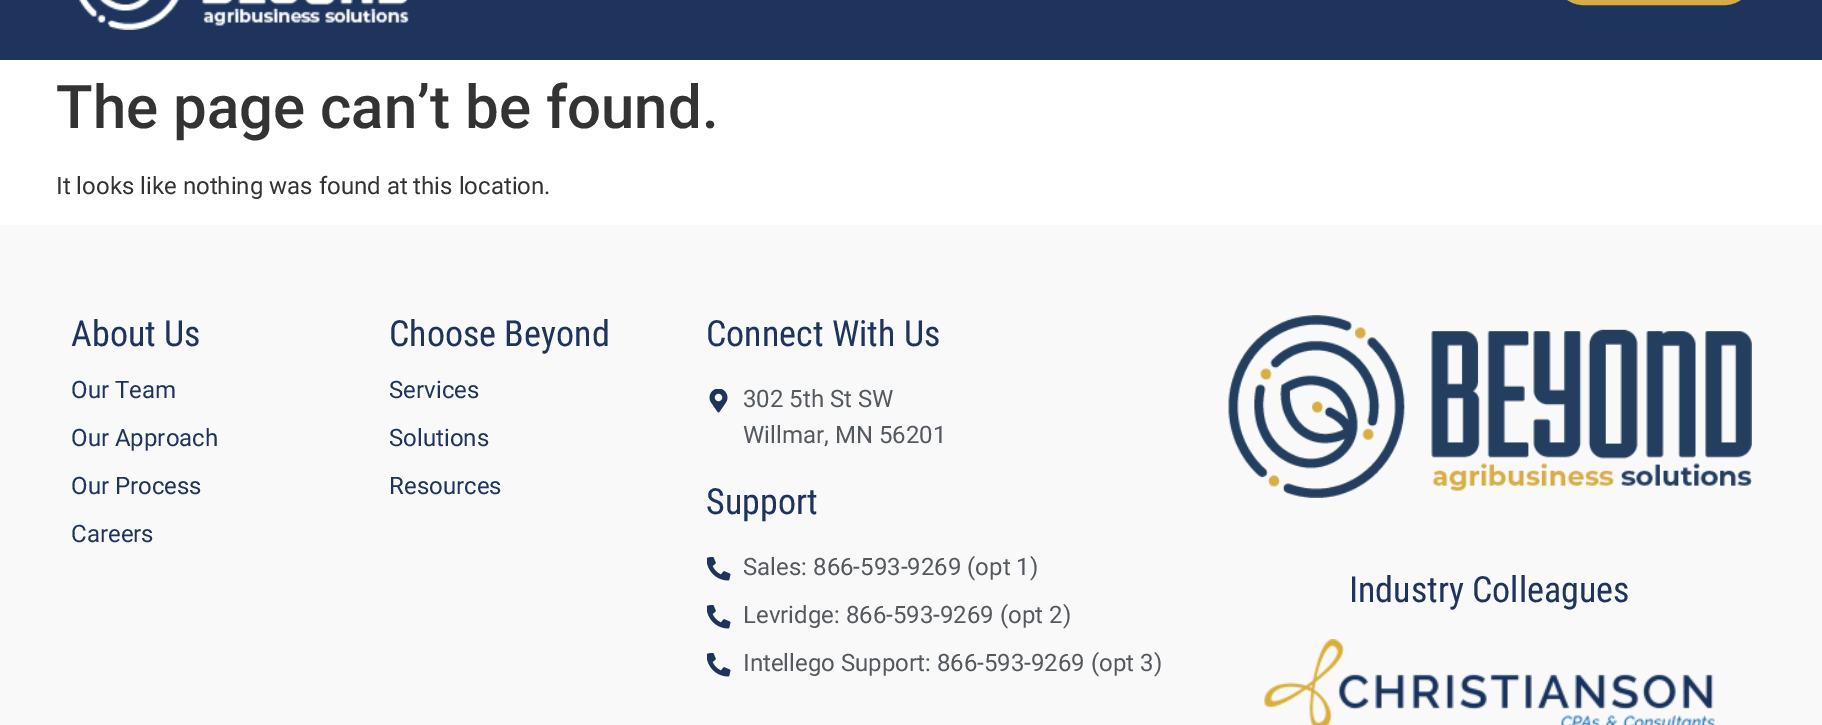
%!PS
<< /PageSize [1822 725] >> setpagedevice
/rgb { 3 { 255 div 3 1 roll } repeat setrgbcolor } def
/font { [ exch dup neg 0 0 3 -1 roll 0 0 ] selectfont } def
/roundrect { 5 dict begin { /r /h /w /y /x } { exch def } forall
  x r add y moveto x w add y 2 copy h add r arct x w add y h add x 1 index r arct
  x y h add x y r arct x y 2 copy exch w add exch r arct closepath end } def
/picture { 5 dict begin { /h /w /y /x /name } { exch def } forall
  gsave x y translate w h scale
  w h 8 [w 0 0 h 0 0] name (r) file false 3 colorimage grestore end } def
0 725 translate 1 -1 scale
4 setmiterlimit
255 255 255 rgb
0 0 1822 725 rectfill
30 52 92 rgb
0 0 1822 60 rectfill
215 171 69 rgb
1557.5 -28.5 193 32 25.5 roundrect gsave fill grestore
3 setlinewidth
stroke
(img/1.rgb) 78 0 331 30 picture
249 249 249 rgb
0 225 1822 500 rectfill
(img/2.rgb) 709 389 19 24 picture
(img/3.rgb) 707 557 24 24 picture
(img/3.rgb) 707 605 24 24 picture
(img/3.rgb) 707 653 24 24 picture
(img/4.rgb) 1228 315 524 183 picture
(img/5.rgb) 1264 639 451 86 picture
/Roboto-Medium 60 font
51 51 51 rgb
56 128 moveto (The page can’t be found.) show
/Roboto-Regular 24 font
56 194 moveto (It looks like nothing was found at this location.) show
/RobotoCondensed-Regular 36 font
30 52 92 rgb
71 346 moveto (About Us) show
/Roboto-Regular 24 font
[
  [(Our Team) 71 398]
  [(Our Approach) 71 446]
  [(Our Process) 71 494]
  [(Careers) 71 542]
] { aload pop moveto show } forall
/RobotoCondensed-Regular 36 font
389 346 moveto (Choose Beyond) show
/Roboto-Regular 24 font
[
  [(Services) 389 398]
  [(Solutions) 389 446]
  [(Resources) 389 494]
] { aload pop moveto show } forall
/RobotoCondensed-Regular 36 font
706 346 moveto (Connect With Us) show
/Roboto-Regular 24 font
84 89 95 rgb
743 407 moveto (302 5th St SW) show
743 443 moveto (Willmar, MN 56201) show
/RobotoCondensed-Regular 36 font
30 52 92 rgb
706 514 moveto (Support) show
/Roboto-Regular 24 font
84 89 95 rgb
[
  [(Sales: 866-593-9269 \(opt 1\)) 743 575]
  [(Levridge: 866-593-9269 \(opt 2\)) 743 623]
  [(Intellego Support: 866-593-9269 \(opt 3\)) 743 671]
] { aload pop moveto show } forall
/RobotoCondensed-Regular 36 font
30 52 92 rgb
1349 602 moveto (Industry Colleagues) show
showpage
